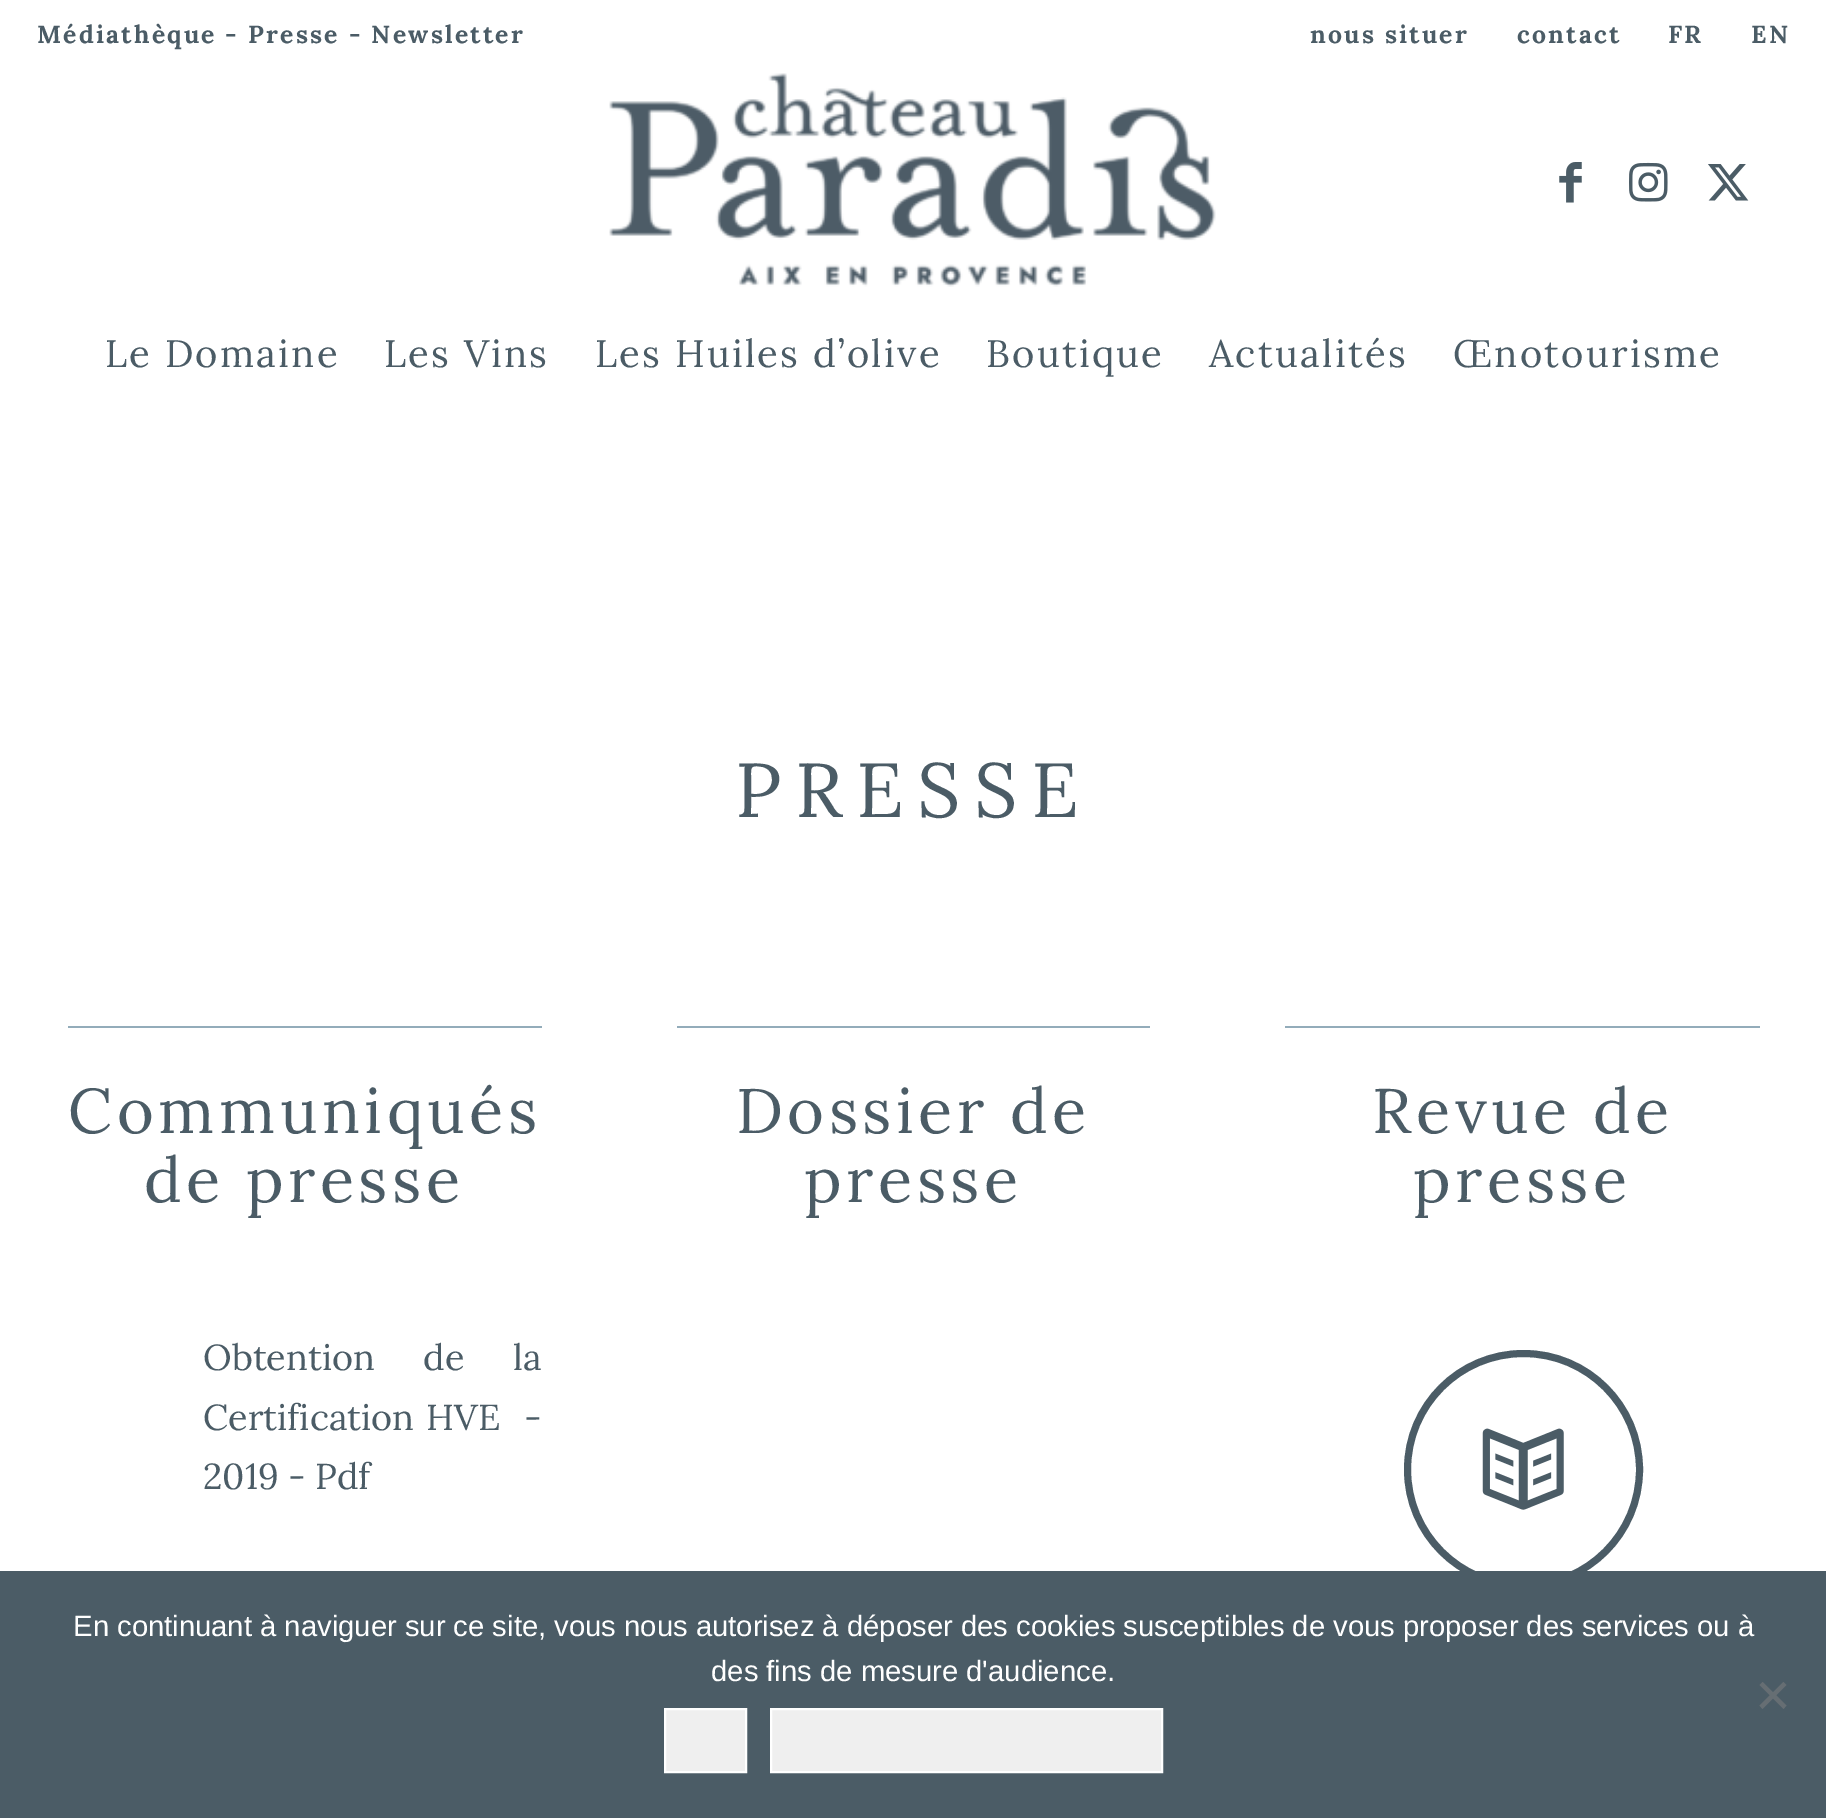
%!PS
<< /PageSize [1826 1818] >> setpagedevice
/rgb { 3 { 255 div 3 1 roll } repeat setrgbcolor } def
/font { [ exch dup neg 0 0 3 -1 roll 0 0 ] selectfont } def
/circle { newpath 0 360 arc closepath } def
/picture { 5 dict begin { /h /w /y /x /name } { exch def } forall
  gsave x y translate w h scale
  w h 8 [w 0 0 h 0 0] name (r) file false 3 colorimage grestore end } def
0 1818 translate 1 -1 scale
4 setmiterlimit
255 255 255 rgb
0 0 1826 1818 rectfill
(img/1.rgb) 609 73 607 214 picture
(img/2.rgb) 1559 162 23 41 picture
(img/3.rgb) 1629 162 39 40 picture
(img/4.rgb) 1708 164 41 37 picture
[
  [68 1026 474 2 147 172 186]
  [677 1026 473 2 147 172 186]
  [1285 1026 475 2 147 172 186]
] { aload pop rgb rectfill } forall
75 92 102 rgb
7 setlinewidth
1523.5 1469.5 116 circle stroke
(img/5.rgb) 1482 1428 82 82 picture
0 1571 1826 247 rectfill
102 110 115 rgb
1783.5 1682 moveto 1786.5 1685 lineto 1762.5 1709 lineto 1759.5 1705.5 lineto closepath fill
1759.5 1685 moveto 1762.5 1682 lineto 1786.5 1705.5 lineto 1783.5 1709 lineto closepath fill
239 239 239 rgb
665 1709 moveto 746 1709 lineto 746 1772 lineto 665 1772 lineto closepath gsave fill grestore
255 255 255 rgb
2 setlinewidth
stroke
239 239 239 rgb
771 1709 moveto 1162 1709 lineto 1162 1772 lineto 771 1772 lineto closepath gsave fill grestore
255 255 255 rgb
stroke
/Lora-Bold 24.75 font
75 92 102 rgb
37 43 moveto 2.25 0 (Médiathèque - Presse - Newsletter) ashow
1310 43 moveto 2.25 0 (nous situer) ashow
1517 43 moveto 2.25 0 (contact) ashow
1668 43 moveto 2.25 0 (FR) ashow
1751 43 moveto 2.25 0 (EN) ashow
/Lora-Regular 38.25 font
105 367 moveto 2.25 0 (Le Domaine) ashow
384 367 moveto 2.25 0 (Les Vins) ashow
595 367 moveto 2.25 0 (Les Huiles d’olive) ashow
986 367 moveto 2.25 0 (Boutique) ashow
1209 367 moveto 2.25 0 (Actualités) ashow
1453 367 moveto 2.25 0 (Œnotourisme) ashow
/Lora-Regular 76.5 font
735 817 moveto 13.5 0 (PRESSE) ashow
/Lora-Regular 63 font
68 1133 moveto 4.5 0 (Communiqués) ashow
144 1202 moveto 4.5 0 (de presse) ashow
/Lora-Regular 36 font
203 1370 moveto 39 0 32 (Obtention de la) widthshow
203 1430 moveto 2.5 0 32 (Certification HVE  -) widthshow
203 1489 moveto (2019 - Pdf) show
/Lora-Regular 63 font
736 1133 moveto 4.5 0 (Dossier de) ashow
804 1202 moveto 4.5 0 (presse) ashow
1372 1133 moveto 4.5 0 (Revue de) ashow
1413 1202 moveto 4.5 0 (presse) ashow
/LiberationSans-Regular 29.25 font
255 255 255 rgb
73 1636 moveto (En continuant à naviguer sur ce site, vous nous autorisez à déposer des cookies susceptibles de vous proposer des services ou à) show
711 1681 moveto (des fins de mesure d'audience.) show
showpage
